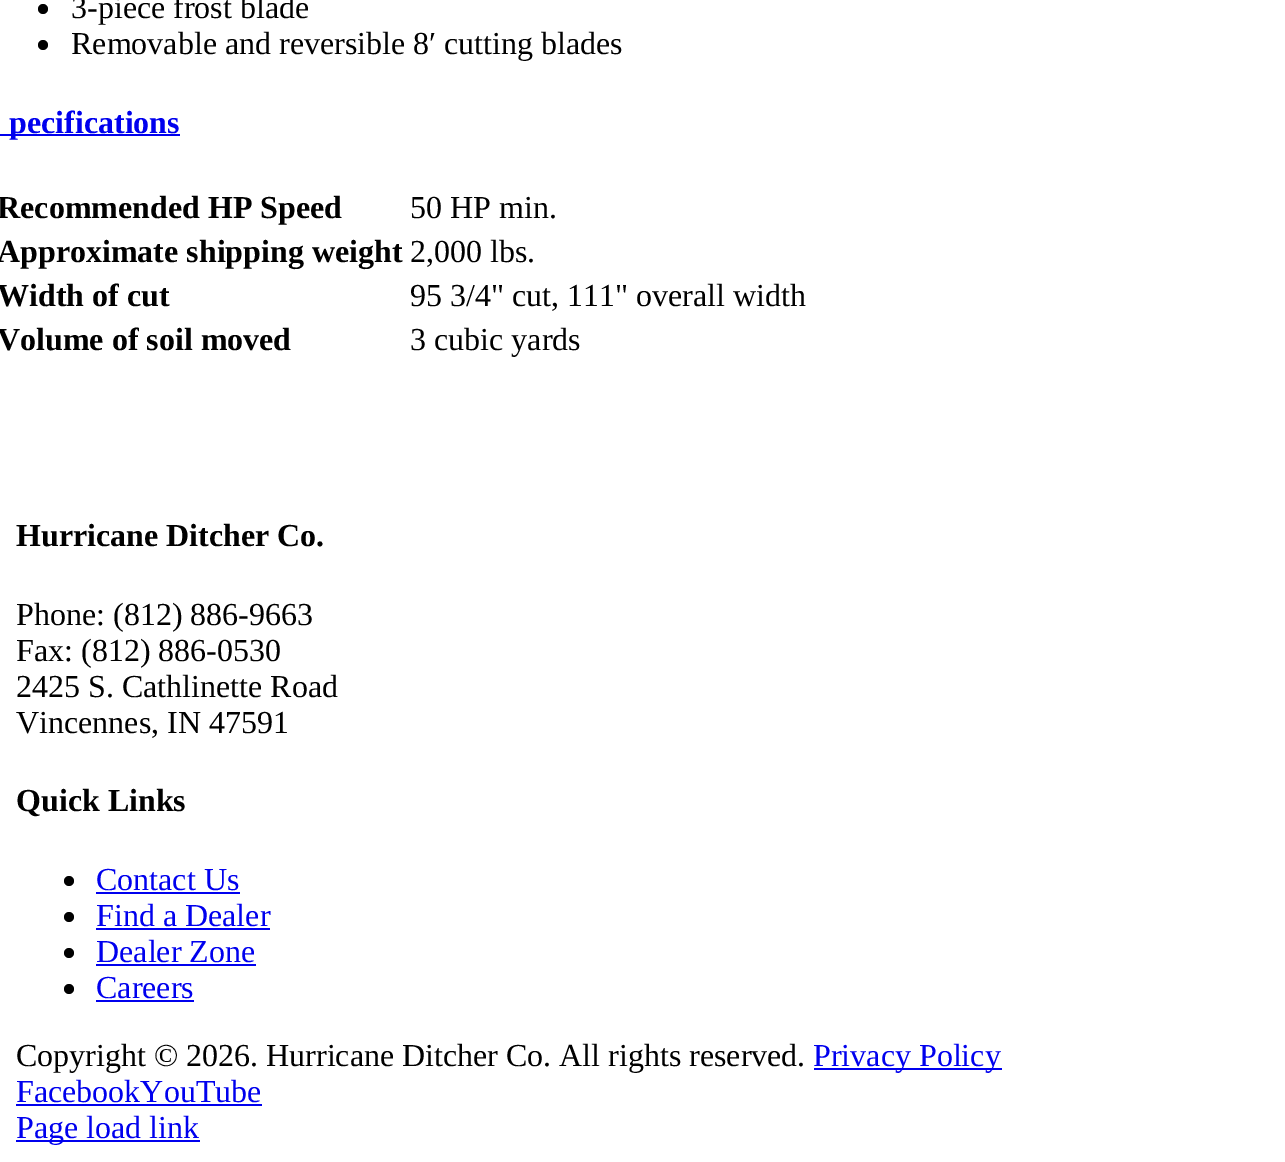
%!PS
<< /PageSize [1285 1162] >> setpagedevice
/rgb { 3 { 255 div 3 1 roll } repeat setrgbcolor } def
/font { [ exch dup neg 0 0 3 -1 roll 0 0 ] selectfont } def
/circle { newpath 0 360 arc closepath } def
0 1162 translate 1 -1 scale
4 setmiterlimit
255 255 255 rgb
0 0 1285 1162 rectfill
0 0 0 rgb
43 9 5 circle fill
43 45 5 circle fill
0 0 238 rgb
0 134 180 2 rectfill
0 0 0 rgb
69 881 5 circle fill
0 0 238 rgb
96 892 144 2 rectfill
0 0 0 rgb
69 917 5 circle fill
0 0 238 rgb
96 928 174 2 rectfill
0 0 0 rgb
69 953 5 circle fill
0 0 238 rgb
96 964 160 2 rectfill
0 0 0 rgb
69 989 5 circle fill
[
  [96 1000 98 2 0 0 238]
  [814 1068 188 2 0 0 238]
  [16 1104 246 2 0 0 238]
  [16 1140 184 2 0 0 238]
] { aload pop rgb rectfill } forall
/LiberationSerif-Regular 32 font
0 0 0 rgb
71 18 moveto (3-piece frost blade) show
71 54 moveto (Removable and reversible 8′ cutting blades) show
/LiberationSerif-Bold 32 font
0 0 238 rgb
9 133 moveto (pecifications) show
0 0 0 rgb
-3 218 moveto (Recommended HP Speed) show
/LiberationSerif-Regular 32 font
410 218 moveto (50 HP min.) show
/LiberationSerif-Bold 32 font
-3 262 moveto (Approximate shipping weight) show
/LiberationSerif-Regular 32 font
410 262 moveto (2,000 lbs.) show
/LiberationSerif-Bold 32 font
-3 306 moveto (Width of cut) show
/LiberationSerif-Regular 32 font
410 306 moveto (95 3/4" cut, 111" overall width) show
/LiberationSerif-Bold 32 font
-3 350 moveto (Volume of soil moved) show
/LiberationSerif-Regular 32 font
410 350 moveto (3 cubic yards) show
/LiberationSerif-Bold 32 font
16 546 moveto (Hurricane Ditcher Co.) show
/LiberationSerif-Regular 32 font
[
  [(Phone: \(812\) 886-9663) 16 625]
  [(Fax: \(812\) 886-0530) 16 661]
  [(2425 S. Cathlinette Road) 16 697]
  [(Vincennes, IN 47591) 16 733]
] { aload pop moveto show } forall
/LiberationSerif-Bold 32 font
16 811 moveto (Quick Links) show
/LiberationSerif-Regular 32 font
0 0 238 rgb
[
  [(Contact Us) 96 890]
  [(Find a Dealer) 96 926]
  [(Dealer Zone) 96 962]
  [(Careers) 96 998]
] { aload pop moveto show } forall
0 0 0 rgb
16 1066 moveto (Copyright © 2026. Hurricane Ditcher Co. All rights reserved.) show
0 0 238 rgb
[
  [(Privacy Policy) 813 1066]
  [(FacebookYouTube) 16 1102]
  [(Page load link) 16 1138]
] { aload pop moveto show } forall
showpage
